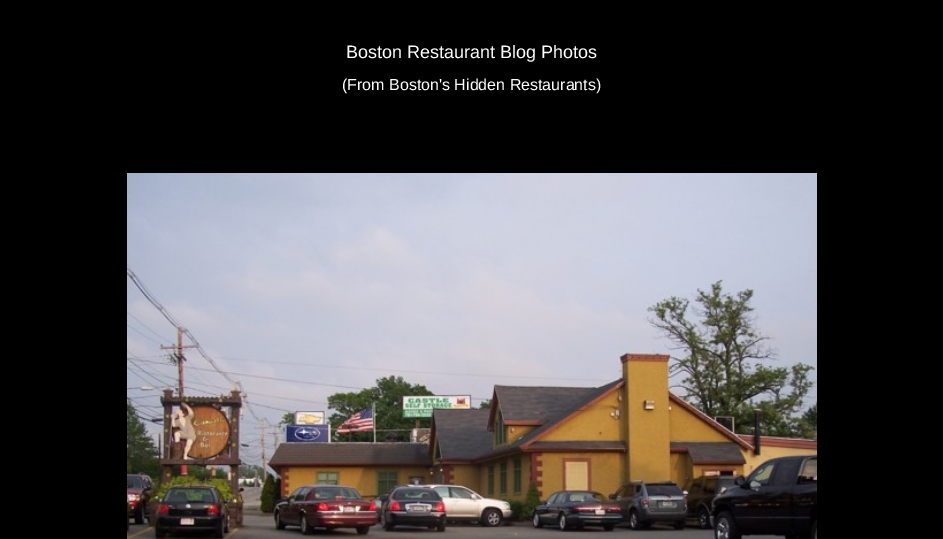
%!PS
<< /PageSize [943 539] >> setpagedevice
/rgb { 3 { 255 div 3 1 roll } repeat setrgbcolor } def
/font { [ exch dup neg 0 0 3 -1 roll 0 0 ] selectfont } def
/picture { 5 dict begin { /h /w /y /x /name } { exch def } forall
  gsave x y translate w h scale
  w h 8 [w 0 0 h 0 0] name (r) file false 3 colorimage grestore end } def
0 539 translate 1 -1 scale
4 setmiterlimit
0 0 0 rgb
0 0 943 539 rectfill
(img/1.rgb) 127 173 690 366 picture
/LiberationSans-Regular 18 font
255 255 255 rgb
346 58 moveto (Boston Restaurant Blog Photos) show
/LiberationSans-Regular 16 font
342 90 moveto (\(From Boston's Hidden Restaurants\)) show
showpage
